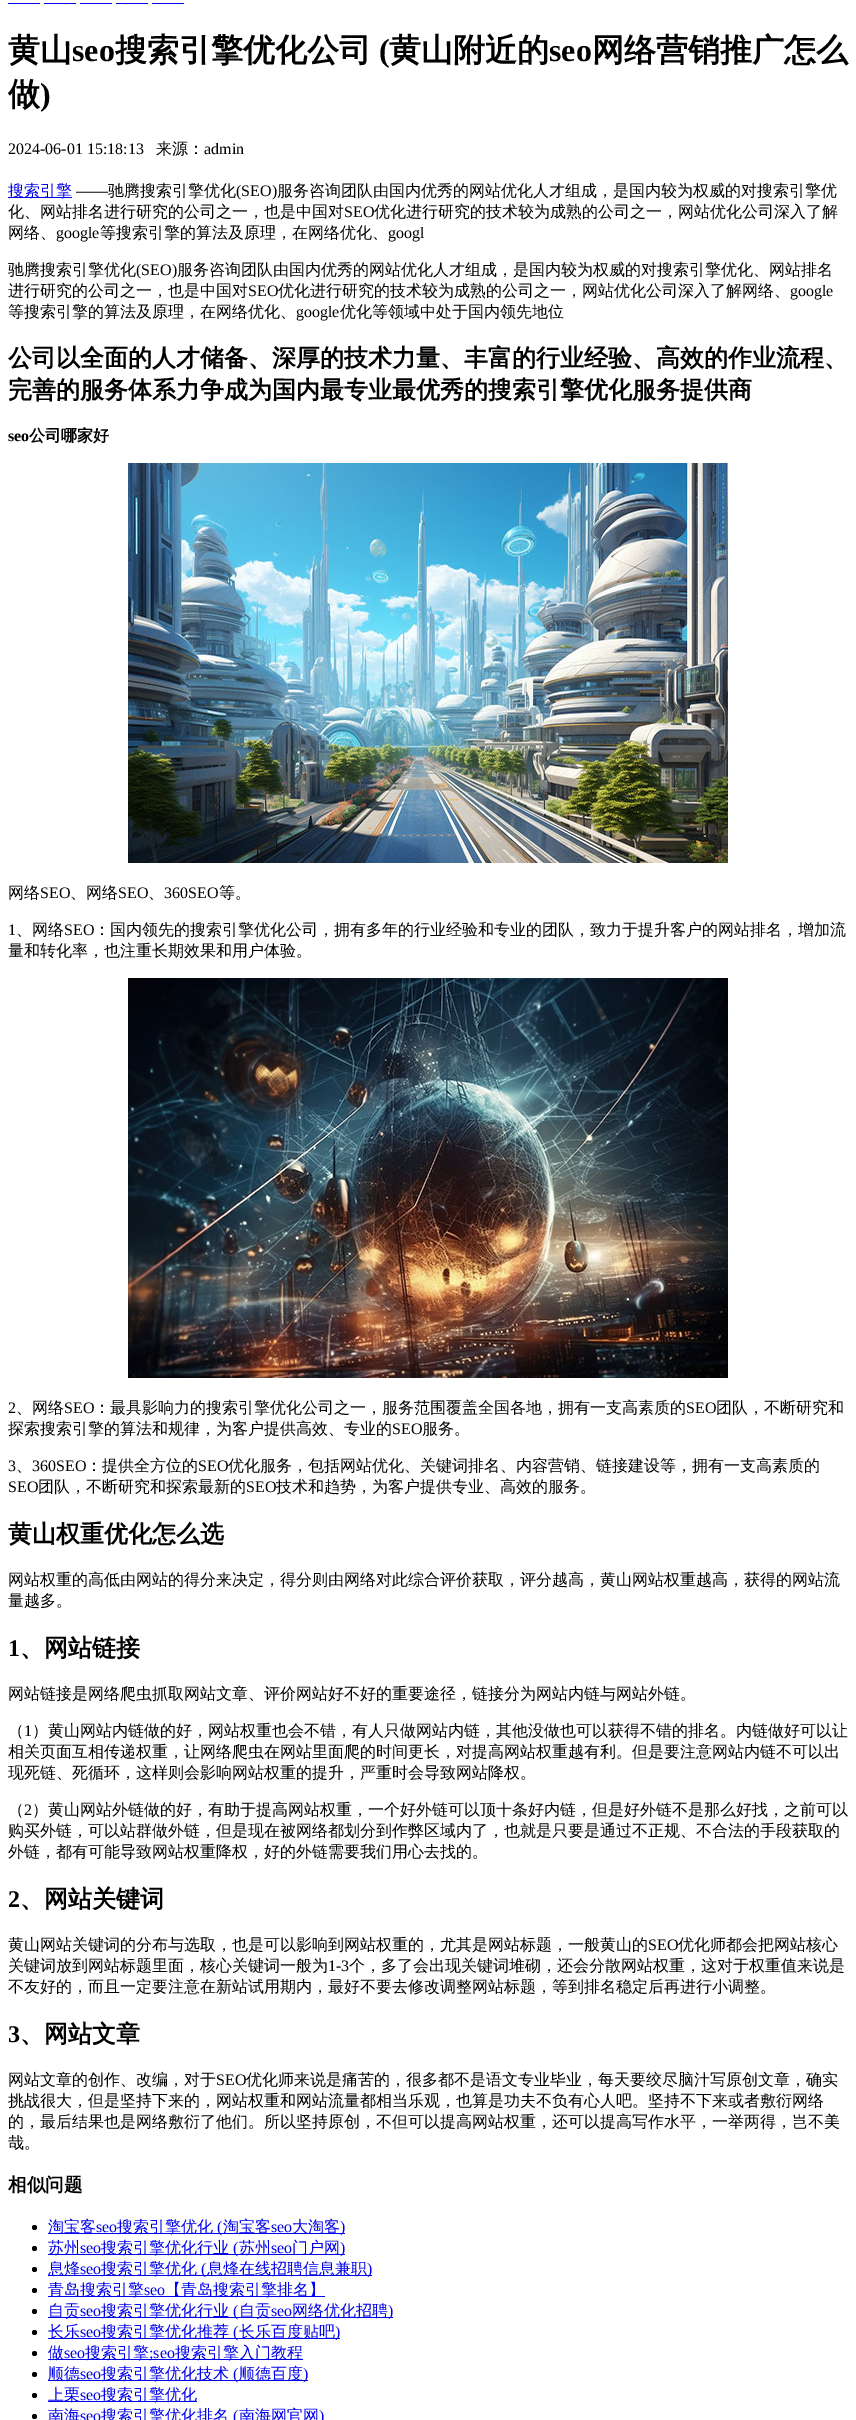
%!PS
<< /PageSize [856 2420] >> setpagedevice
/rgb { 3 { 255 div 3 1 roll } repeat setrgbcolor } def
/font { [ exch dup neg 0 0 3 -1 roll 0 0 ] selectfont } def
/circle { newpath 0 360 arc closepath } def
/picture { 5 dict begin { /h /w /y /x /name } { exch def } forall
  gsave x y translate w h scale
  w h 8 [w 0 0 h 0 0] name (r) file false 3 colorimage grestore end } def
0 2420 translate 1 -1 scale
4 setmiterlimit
255 255 255 rgb
0 0 856 2420 rectfill
[
  [8 3 32 1 0 0 238]
  [44 3 32 1 0 0 238]
  [80 3 32 1 0 0 238]
  [116 3 32 1 0 0 238]
  [152 3 32 1 0 0 238]
  [8 197 64 1 0 0 238]
] { aload pop rgb rectfill } forall
(img/1.rgb) 128 463 600 400 picture
(img/2.rgb) 128 978 600 400 picture
0 0 0 rgb
34.5 2227.5 2.5 circle fill
0 0 238 rgb
48 2233 297 1 rectfill
0 0 0 rgb
34.5 2248.5 2.5 circle fill
0 0 238 rgb
48 2254 297 1 rectfill
0 0 0 rgb
34.5 2269.5 2.5 circle fill
0 0 238 rgb
48 2275 324 1 rectfill
0 0 0 rgb
34.5 2290.5 2.5 circle fill
0 0 238 rgb
48 2296 277 1 rectfill
0 0 0 rgb
34.5 2311.5 2.5 circle fill
0 0 238 rgb
48 2317 345 1 rectfill
0 0 0 rgb
34.5 2332.5 2.5 circle fill
0 0 238 rgb
48 2338 292 1 rectfill
0 0 0 rgb
34.5 2353.5 2.5 circle fill
0 0 238 rgb
48 2359 255 1 rectfill
0 0 0 rgb
34.5 2374.5 2.5 circle fill
0 0 238 rgb
48 2380 260 1 rectfill
0 0 0 rgb
34.5 2395.5 2.5 circle fill
0 0 238 rgb
48 2401 149 1 rectfill
0 0 0 rgb
34.5 2416.5 2.5 circle fill
/WenQuanYiZenHei-Bold 32 font
8 61 moveto (黄山) show
/LiberationSerif-Bold 32 font
72 61 moveto (seo) show
/WenQuanYiZenHei-Bold 32 font
115 61 moveto (搜索引擎优化公司) show
/LiberationSerif-Bold 32 font
379 61 moveto (\() show
/WenQuanYiZenHei-Bold 32 font
389 61 moveto (黄山附近的) show
/LiberationSerif-Bold 32 font
549 61 moveto (seo) show
/WenQuanYiZenHei-Bold 32 font
592 61 moveto (网络营销推广怎么) show
8 105 moveto (做) show
/LiberationSerif-Bold 32 font
40 105 moveto (\)) show
/LiberationSerif-Regular 16 font
8 154 moveto (2024-06-01 15:18:13) show
/WenQuanYiZenHei-Medium 16 font
156 154 moveto (来源：) show
/LiberationSerif-Regular 16 font
204 154 moveto (admin) show
/WenQuanYiZenHei-Medium 16 font
0 0 238 rgb
8 196 moveto (搜索引擎) show
/LiberationSerif-Regular 16 font
0 0 0 rgb
76 196 moveto (——) show
/WenQuanYiZenHei-Medium 16 font
108 196 moveto (驰腾搜索引擎优化) show
/LiberationSerif-Regular 16 font
236 196 moveto (\(SEO\)) show
/WenQuanYiZenHei-Medium 16 font
277 196 moveto (服务咨询团队由国内优秀的网站优化人才组成，是国内较为权威的对搜索引擎优) show
8 217 moveto (化、网站排名进行研究的公司之一，也是中国对) show
/LiberationSerif-Regular 16 font
344 217 moveto (SEO) show
/WenQuanYiZenHei-Medium 16 font
374 217 moveto (优化进行研究的技术较为成熟的公司之一，网站优化公司深入了解) show
8 238 moveto (网络、) show
/LiberationSerif-Regular 16 font
56 238 moveto (google) show
/WenQuanYiZenHei-Medium 16 font
100 238 moveto (等搜索引擎的算法及原理，在网络优化、) show
/LiberationSerif-Regular 16 font
388 238 moveto (googl) show
/WenQuanYiZenHei-Medium 16 font
8 275 moveto (驰腾搜索引擎优化) show
/LiberationSerif-Regular 16 font
136 275 moveto (\(SEO\)) show
/WenQuanYiZenHei-Medium 16 font
177 275 moveto (服务咨询团队由国内优秀的网站优化人才组成，是国内较为权威的对搜索引擎优化、网站排名) show
8 296 moveto (进行研究的公司之一，也是中国对) show
/LiberationSerif-Regular 16 font
248 296 moveto (SEO) show
/WenQuanYiZenHei-Medium 16 font
278 296 moveto (优化进行研究的技术较为成熟的公司之一，网站优化公司深入了解网络、) show
/LiberationSerif-Regular 16 font
790 296 moveto (google) show
/WenQuanYiZenHei-Medium 16 font
8 317 moveto (等搜索引擎的算法及原理，在网络优化、) show
/LiberationSerif-Regular 16 font
296 317 moveto (google) show
/WenQuanYiZenHei-Medium 16 font
340 317 moveto (优化等领域中处于国内领先地位) show
/WenQuanYiZenHei-Bold 24 font
8 366 moveto (公司以全面的人才储备、深厚的技术力量、丰富的行业经验、高效的作业流程、) show
8 398 moveto (完善的服务体系力争成为国内最专业最优秀的搜索引擎优化服务提供商) show
/LiberationSerif-Bold 16 font
8 441 moveto (seo) show
/WenQuanYiZenHei-Bold 16 font
29 441 moveto (公司哪家好) show
/WenQuanYiZenHei-Medium 16 font
8 898 moveto (网络) show
/LiberationSerif-Regular 16 font
40 898 moveto (SEO) show
/WenQuanYiZenHei-Medium 16 font
70 898 moveto (、网络) show
/LiberationSerif-Regular 16 font
118 898 moveto (SEO) show
/WenQuanYiZenHei-Medium 16 font
148 898 moveto (、) show
/LiberationSerif-Regular 16 font
164 898 moveto (360SEO) show
/WenQuanYiZenHei-Medium 16 font
219 898 moveto (等。) show
/LiberationSerif-Regular 16 font
8 935 moveto (1) show
/WenQuanYiZenHei-Medium 16 font
16 935 moveto (、网络) show
/LiberationSerif-Regular 16 font
64 935 moveto (SEO) show
/WenQuanYiZenHei-Medium 16 font
94 935 moveto (：国内领先的搜索引擎优化公司，拥有多年的行业经验和专业的团队，致力于提升客户的网站排名，增加流) show
8 956 moveto (量和转化率，也注重长期效果和用户体验。) show
/LiberationSerif-Regular 16 font
8 1413 moveto (2) show
/WenQuanYiZenHei-Medium 16 font
16 1413 moveto (、网络) show
/LiberationSerif-Regular 16 font
64 1413 moveto (SEO) show
/WenQuanYiZenHei-Medium 16 font
94 1413 moveto (：最具影响力的搜索引擎优化公司之一，服务范围覆盖全国各地，拥有一支高素质的) show
/LiberationSerif-Regular 16 font
686 1413 moveto (SEO) show
/WenQuanYiZenHei-Medium 16 font
716 1413 moveto (团队，不断研究和) show
8 1434 moveto (探索搜索引擎的算法和规律，为客户提供高效、专业的) show
/LiberationSerif-Regular 16 font
392 1434 moveto (SEO) show
/WenQuanYiZenHei-Medium 16 font
422 1434 moveto (服务。) show
/LiberationSerif-Regular 16 font
8 1471 moveto (3) show
/WenQuanYiZenHei-Medium 16 font
16 1471 moveto (、) show
/LiberationSerif-Regular 16 font
32 1471 moveto (360SEO) show
/WenQuanYiZenHei-Medium 16 font
86 1471 moveto (：提供全方位的) show
/LiberationSerif-Regular 16 font
198 1471 moveto (SEO) show
/WenQuanYiZenHei-Medium 16 font
228 1471 moveto (优化服务，包括网站优化、关键词排名、内容营销、链接建设等，拥有一支高素质的) show
/LiberationSerif-Regular 16 font
8 1492 moveto (SEO) show
/WenQuanYiZenHei-Medium 16 font
38 1492 moveto (团队，不断研究和探索最新的) show
/LiberationSerif-Regular 16 font
246 1492 moveto (SEO) show
/WenQuanYiZenHei-Medium 16 font
276 1492 moveto (技术和趋势，为客户提供专业、高效的服务。) show
/WenQuanYiZenHei-Bold 24 font
8 1542 moveto (黄山权重优化怎么选) show
/WenQuanYiZenHei-Medium 16 font
8 1585 moveto (网站权重的高低由网站的得分来决定，得分则由网络对此综合评价获取，评分越高，黄山网站权重越高，获得的网站流) show
8 1606 moveto (量越多。) show
/LiberationSerif-Bold 24 font
8 1656 moveto (1) show
/WenQuanYiZenHei-Bold 24 font
20 1656 moveto (、网站链接) show
/WenQuanYiZenHei-Medium 16 font
8 1699 moveto (网站链接是网络爬虫抓取网站文章、评价网站好不好的重要途径，链接分为网站内链与网站外链。) show
8 1736 moveto (（) show
/LiberationSerif-Regular 16 font
24 1736 moveto (1) show
/WenQuanYiZenHei-Medium 16 font
[
  [(）黄山网站内链做的好，网站权重也会不错，有人只做网站内链，其他没做也可以获得不错的排名。内链做好可以让) 32 1736]
  [(相关页面互相传递权重，让网络爬虫在网站里面爬的时间更长，对提高网站权重越有利。但是要注意网站内链不可以出) 8 1757]
  [(现死链、死循环，这样则会影响网站权重的提升，严重时会导致网站降权。) 8 1778]
  [(（) 8 1815]
] { aload pop moveto show } forall
/LiberationSerif-Regular 16 font
24 1815 moveto (2) show
/WenQuanYiZenHei-Medium 16 font
[
  [(）黄山网站外链做的好，有助于提高网站权重，一个好外链可以顶十条好内链，但是好外链不是那么好找，之前可以) 32 1815]
  [(购买外链，可以站群做外链，但是现在被网络都划分到作弊区域内了，也就是只要是通过不正规、不合法的手段获取的) 8 1836]
  [(外链，都有可能导致网站权重降权，好的外链需要我们用心去找的。) 8 1857]
] { aload pop moveto show } forall
/LiberationSerif-Bold 24 font
8 1907 moveto (2) show
/WenQuanYiZenHei-Bold 24 font
20 1907 moveto (、网站关键词) show
/WenQuanYiZenHei-Medium 16 font
8 1950 moveto (黄山网站关键词的分布与选取，也是可以影响到网站权重的，尤其是网站标题，一般黄山的) show
/LiberationSerif-Regular 16 font
648 1950 moveto (SEO) show
/WenQuanYiZenHei-Medium 16 font
678 1950 moveto (优化师都会把网站核心) show
8 1971 moveto (关键词放到网站标题里面，核心关键词一般为) show
/LiberationSerif-Regular 16 font
328 1971 moveto (1-3) show
/WenQuanYiZenHei-Medium 16 font
349 1971 moveto (个，多了会出现关键词堆砌，还会分散网站权重，这对于权重值来说是) show
8 1992 moveto (不友好的，而且一定要注意在新站试用期内，最好不要去修改调整网站标题，等到排名稳定后再进行小调整。) show
/LiberationSerif-Bold 24 font
8 2042 moveto (3) show
/WenQuanYiZenHei-Bold 24 font
20 2042 moveto (、网站文章) show
/WenQuanYiZenHei-Medium 16 font
8 2085 moveto (网站文章的创作、改编，对于) show
/LiberationSerif-Regular 16 font
216 2085 moveto (SEO) show
/WenQuanYiZenHei-Medium 16 font
[
  [(优化师来说是痛苦的，很多都不是语文专业毕业，每天要绞尽脑汁写原创文章，确实) 246 2085]
  [(挑战很大，但是坚持下来的，网站权重和网站流量都相当乐观，也算是功夫不负有心人吧。坚持不下来或者敷衍网络) 8 2106]
  [(的，最后结果也是网络敷衍了他们。所以坚持原创，不但可以提高网站权重，还可以提高写作水平，一举两得，岂不美) 8 2127]
  [(哉。) 8 2148]
] { aload pop moveto show } forall
/WenQuanYiZenHei-Bold 18.5 font
8 2191 moveto (相似问题) show
/WenQuanYiZenHei-Medium 16 font
0 0 238 rgb
48 2232 moveto (淘宝客) show
/LiberationSerif-Regular 16 font
96 2232 moveto (seo) show
/WenQuanYiZenHei-Medium 16 font
117 2232 moveto (搜索引擎优化) show
/LiberationSerif-Regular 16 font
217 2232 moveto (\() show
/WenQuanYiZenHei-Medium 16 font
223 2232 moveto (淘宝客) show
/LiberationSerif-Regular 16 font
271 2232 moveto (seo) show
/WenQuanYiZenHei-Medium 16 font
292 2232 moveto (大淘客) show
/LiberationSerif-Regular 16 font
340 2232 moveto (\)) show
/WenQuanYiZenHei-Medium 16 font
48 2253 moveto (苏州) show
/LiberationSerif-Regular 16 font
80 2253 moveto (seo) show
/WenQuanYiZenHei-Medium 16 font
101 2253 moveto (搜索引擎优化行业) show
/LiberationSerif-Regular 16 font
233 2253 moveto (\() show
/WenQuanYiZenHei-Medium 16 font
239 2253 moveto (苏州) show
/LiberationSerif-Regular 16 font
271 2253 moveto (seo) show
/WenQuanYiZenHei-Medium 16 font
292 2253 moveto (门户网) show
/LiberationSerif-Regular 16 font
340 2253 moveto (\)) show
/WenQuanYiZenHei-Medium 16 font
48 2274 moveto (息烽) show
/LiberationSerif-Regular 16 font
80 2274 moveto (seo) show
/WenQuanYiZenHei-Medium 16 font
101 2274 moveto (搜索引擎优化) show
/LiberationSerif-Regular 16 font
201 2274 moveto (\() show
/WenQuanYiZenHei-Medium 16 font
207 2274 moveto (息烽在线招聘信息兼职) show
/LiberationSerif-Regular 16 font
367 2274 moveto (\)) show
/WenQuanYiZenHei-Medium 16 font
48 2295 moveto (青岛搜索引擎) show
/LiberationSerif-Regular 16 font
144 2295 moveto (seo) show
/WenQuanYiZenHei-Medium 16 font
165 2295 moveto (【青岛搜索引擎排名】) show
48 2316 moveto (自贡) show
/LiberationSerif-Regular 16 font
80 2316 moveto (seo) show
/WenQuanYiZenHei-Medium 16 font
101 2316 moveto (搜索引擎优化行业) show
/LiberationSerif-Regular 16 font
233 2316 moveto (\() show
/WenQuanYiZenHei-Medium 16 font
239 2316 moveto (自贡) show
/LiberationSerif-Regular 16 font
271 2316 moveto (seo) show
/WenQuanYiZenHei-Medium 16 font
292 2316 moveto (网络优化招聘) show
/LiberationSerif-Regular 16 font
388 2316 moveto (\)) show
/WenQuanYiZenHei-Medium 16 font
48 2337 moveto (长乐) show
/LiberationSerif-Regular 16 font
80 2337 moveto (seo) show
/WenQuanYiZenHei-Medium 16 font
101 2337 moveto (搜索引擎优化推荐) show
/LiberationSerif-Regular 16 font
233 2337 moveto (\() show
/WenQuanYiZenHei-Medium 16 font
239 2337 moveto (长乐百度贴吧) show
/LiberationSerif-Regular 16 font
335 2337 moveto (\)) show
/WenQuanYiZenHei-Medium 16 font
48 2358 moveto (做) show
/LiberationSerif-Regular 16 font
64 2358 moveto (seo) show
/WenQuanYiZenHei-Medium 16 font
85 2358 moveto (搜索引擎) show
/LiberationSerif-Regular 16 font
149 2358 moveto (;seo) show
/WenQuanYiZenHei-Medium 16 font
175 2358 moveto (搜索引擎入门教程) show
48 2379 moveto (顺德) show
/LiberationSerif-Regular 16 font
80 2379 moveto (seo) show
/WenQuanYiZenHei-Medium 16 font
101 2379 moveto (搜索引擎优化技术) show
/LiberationSerif-Regular 16 font
233 2379 moveto (\() show
/WenQuanYiZenHei-Medium 16 font
239 2379 moveto (顺德百度) show
/LiberationSerif-Regular 16 font
303 2379 moveto (\)) show
/WenQuanYiZenHei-Medium 16 font
48 2400 moveto (上栗) show
/LiberationSerif-Regular 16 font
80 2400 moveto (seo) show
/WenQuanYiZenHei-Medium 16 font
101 2400 moveto (搜索引擎优化) show
48 2421 moveto (南海) show
/LiberationSerif-Regular 16 font
80 2421 moveto (seo) show
/WenQuanYiZenHei-Medium 16 font
101 2421 moveto (搜索引擎优化排名) show
/LiberationSerif-Regular 16 font
233 2421 moveto (\() show
/WenQuanYiZenHei-Medium 16 font
239 2421 moveto (南海网官网) show
/LiberationSerif-Regular 16 font
319 2421 moveto (\)) show
showpage
